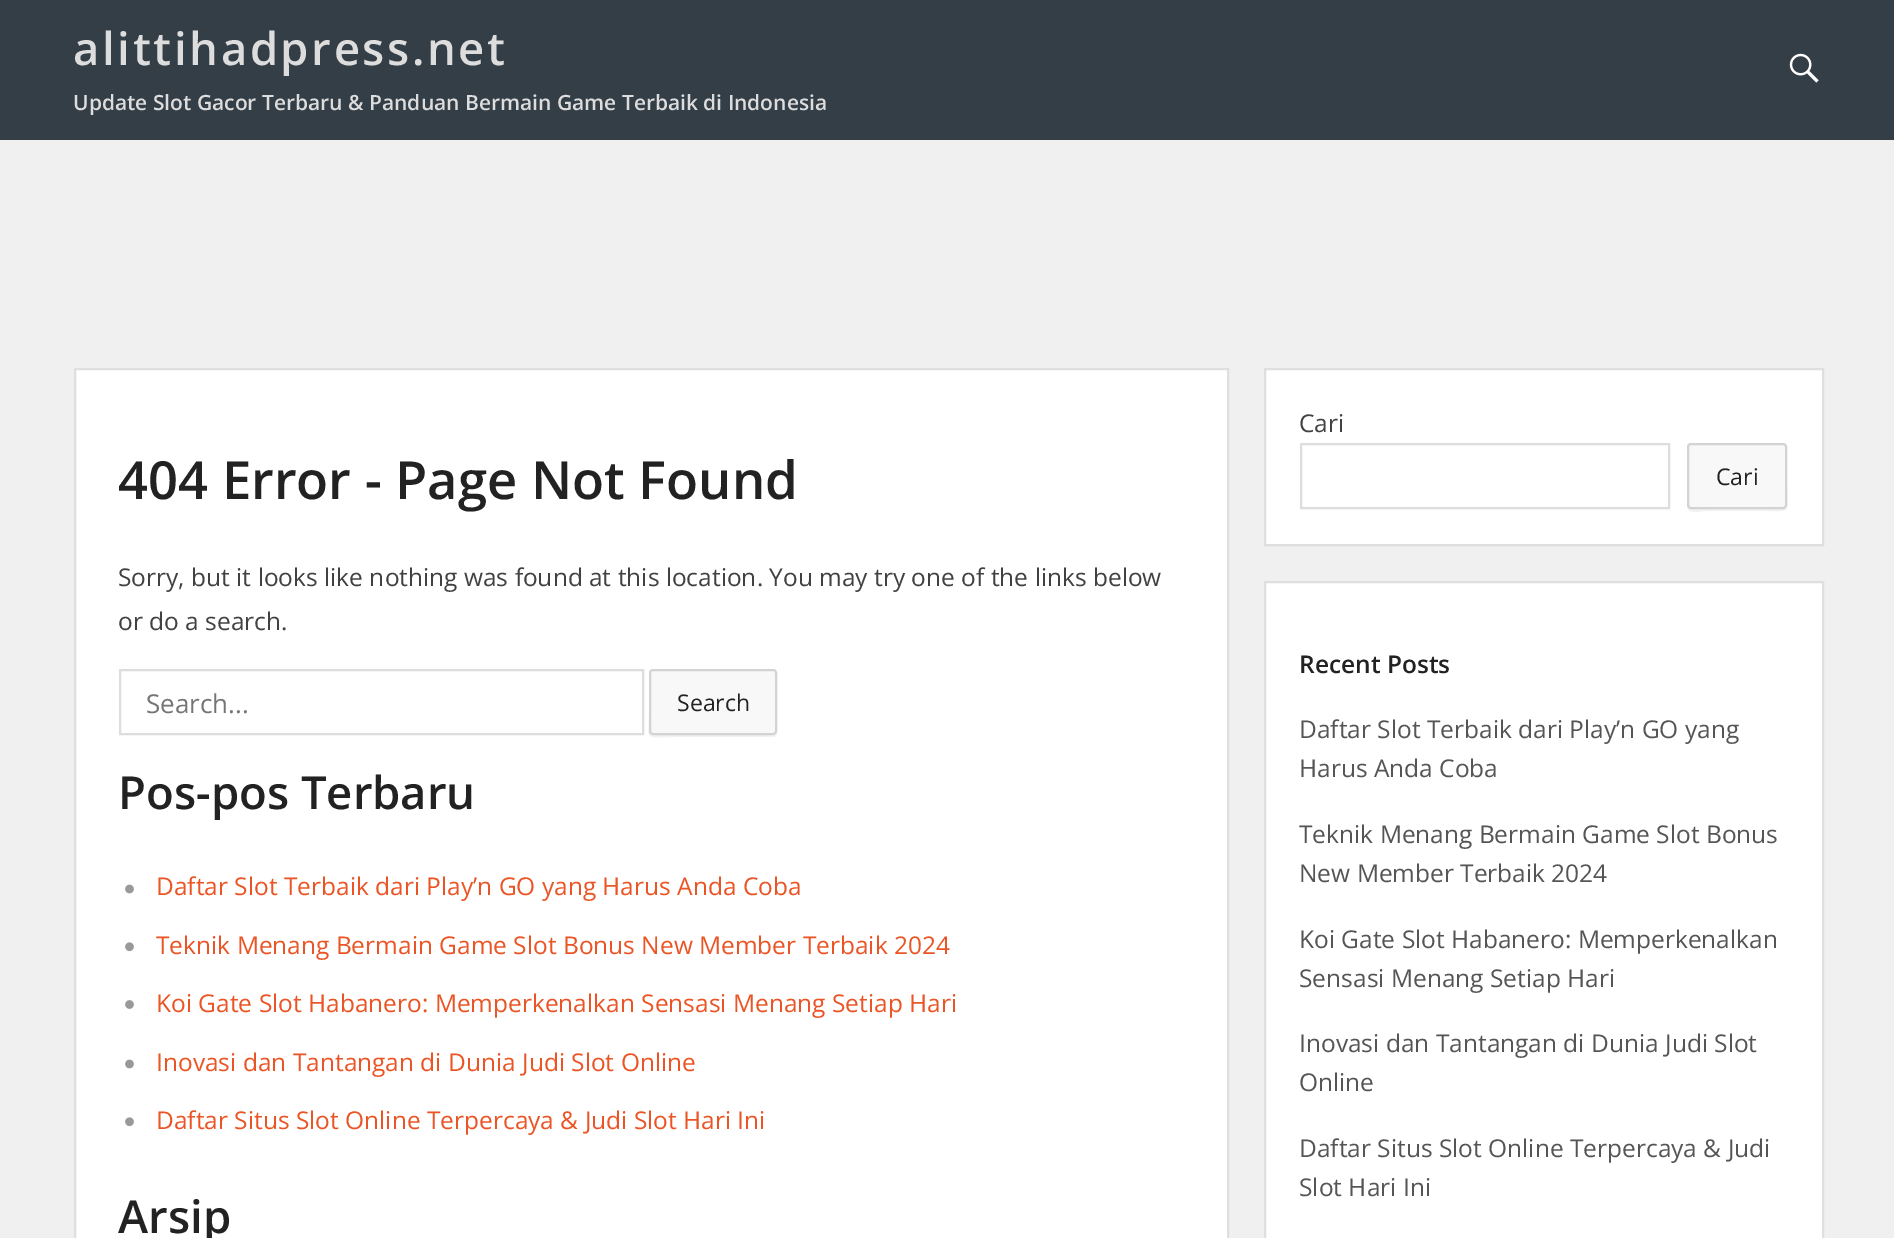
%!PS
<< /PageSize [1894 1238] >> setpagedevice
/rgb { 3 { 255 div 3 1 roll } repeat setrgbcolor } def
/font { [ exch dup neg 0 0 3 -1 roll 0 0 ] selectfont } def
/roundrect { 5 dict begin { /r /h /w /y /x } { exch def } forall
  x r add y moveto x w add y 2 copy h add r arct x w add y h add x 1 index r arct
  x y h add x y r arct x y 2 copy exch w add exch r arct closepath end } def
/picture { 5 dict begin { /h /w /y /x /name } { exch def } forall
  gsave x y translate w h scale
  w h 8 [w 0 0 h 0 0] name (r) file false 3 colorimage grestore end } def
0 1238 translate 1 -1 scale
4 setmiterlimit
240 240 240 rgb
0 0 1894 1238 rectfill
52 62 71 rgb
0 0 1894 140 rectfill
(img/1.rgb) 1789 53 30 30 picture
255 255 255 rgb
75 369 moveto 1228 369 lineto 1228 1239 lineto 75 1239 lineto closepath gsave fill grestore
223 223 223 rgb
2 setlinewidth
stroke
221 221 221 rgb
120 670 523 64 rectstroke
242 242 242 rgb
649 673 moveto 649 713 lineto 649 742 644 737 673 737 curveto 773 737 lineto 776 737 777 734 777 732 curveto 777 733 775 735 774 735 curveto 653 735 lineto 651 735 649 733 649 732 curveto closepath fill
248 248 248 rgb
650 670 126 64 3 roundrect gsave fill grestore
211 211 211 rgb
stroke
(img/2.rgb) 125 884 9 10 picture
(img/3.rgb) 125 942 9 10 picture
(img/4.rgb) 125 1000 9 9 picture
(img/2.rgb) 125 1059 9 10 picture
(img/3.rgb) 125 1117 9 10 picture
255 255 255 rgb
1265 369 moveto 1823 369 lineto 1823 545 lineto 1265 545 lineto closepath gsave fill grestore
223 223 223 rgb
stroke
221 221 221 rgb
1301 444 368 64 rectstroke
242 242 242 rgb
1687 506 moveto 1687 515 1701 511 1706 511 curveto 1768 511 lineto 1792 511 1787 513 1787 488 curveto 1787 448 lineto 1787 506 lineto 1787 508 1785 509 1783 509 curveto 1690 509 lineto 1689 509 1687 508 1687 506 curveto closepath fill
248 248 248 rgb
1688 444 98 64 3 roundrect gsave fill grestore
211 211 211 rgb
stroke
255 255 255 rgb
1265 582 moveto 1823 582 lineto 1823 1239 lineto 1265 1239 lineto closepath gsave fill grestore
223 223 223 rgb
stroke
/OpenSans-SemiBold 45.5 font
221 221 221 rgb
73 65 moveto 2.6 0 (alittihadpress.net) ashow
/OpenSans-SemiBold 21 font
73 110 moveto (Update Slot Gacor Terbaru & Panduan Bermain Game Terbaik di Indonesia) show
/OpenSans-SemiBold 52.5 font
34 34 34 rgb
118 499 moveto (404 Error - Page Not Found) show
/OpenSans-Regular 24.5 font
65 65 65 rgb
118 586 moveto (Sorry, but it looks like nothing was found at this location. You may try one of the links below) show
118 630 moveto (or do a search.) show
/OpenSans-Regular 26 font
117 117 117 rgb
146 713 moveto (Search...) show
/OpenSans-Regular 23 font
34 34 34 rgb
677 711 moveto (Search) show
/OpenSans-SemiBold 45.5 font
118 809 moveto (Pos-pos Terbaru) show
/OpenSans-Regular 24.5 font
235 84 36 rgb
[
  [(Daftar Slot Terbaik dari Play’n GO yang Harus Anda Coba) 156 895]
  [(Teknik Menang Bermain Game Slot Bonus New Member Terbaik 2024) 156 954]
  [(Koi Gate Slot Habanero: Memperkenalkan Sensasi Menang Setiap Hari) 156 1012]
  [(Inovasi dan Tantangan di Dunia Judi Slot Online) 156 1071]
  [(Daftar Situs Slot Online Terpercaya & Judi Slot Hari Ini) 156 1129]
] { aload pop moveto show } forall
/OpenSans-SemiBold 45.5 font
34 34 34 rgb
118 1233 moveto (Arsip) show
/OpenSans-Regular 24.5 font
65 65 65 rgb
1299 432 moveto (Cari) show
/OpenSans-Regular 23 font
34 34 34 rgb
1716 485 moveto (Cari) show
/OpenSans-SemiBold 24.5 font
1299 673 moveto (Recent Posts) show
/OpenSans-Regular 24.5 font
85 85 85 rgb
[
  [(Daftar Slot Terbaik dari Play’n GO yang) 1299 738]
  [(Harus Anda Coba) 1299 777]
  [(Teknik Menang Bermain Game Slot Bonus) 1299 843]
  [(New Member Terbaik 2024) 1299 882]
  [(Koi Gate Slot Habanero: Memperkenalkan) 1299 948]
  [(Sensasi Menang Setiap Hari) 1299 987]
  [(Inovasi dan Tantangan di Dunia Judi Slot) 1299 1052]
  [(Online) 1299 1091]
  [(Daftar Situs Slot Online Terpercaya & Judi) 1299 1157]
  [(Slot Hari Ini) 1299 1196]
] { aload pop moveto show } forall
showpage
